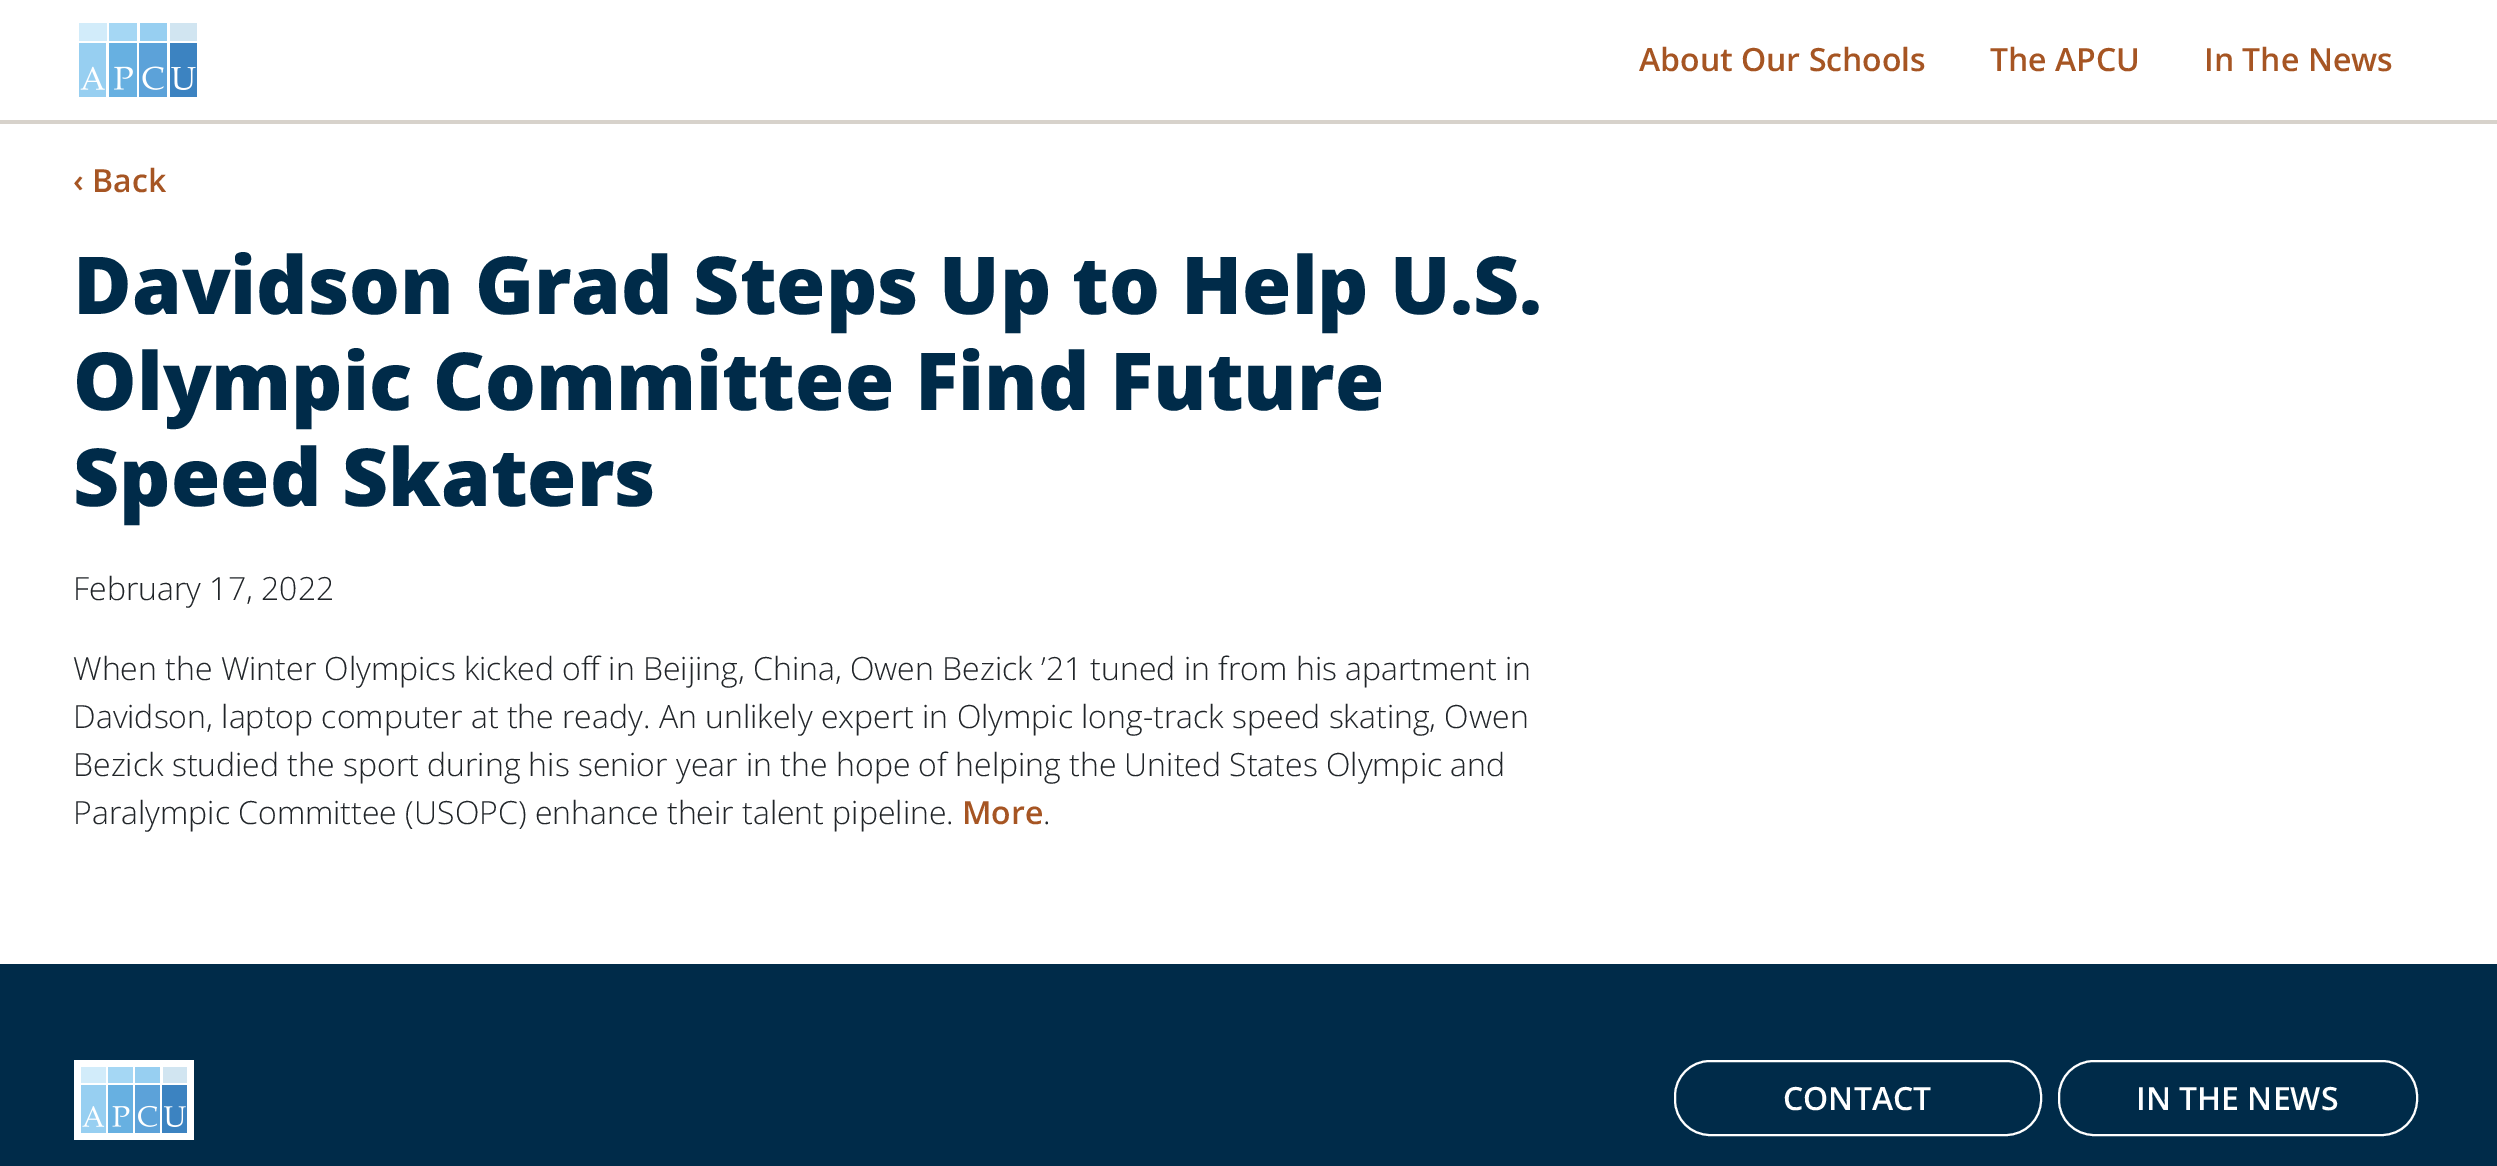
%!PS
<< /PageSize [2497 1166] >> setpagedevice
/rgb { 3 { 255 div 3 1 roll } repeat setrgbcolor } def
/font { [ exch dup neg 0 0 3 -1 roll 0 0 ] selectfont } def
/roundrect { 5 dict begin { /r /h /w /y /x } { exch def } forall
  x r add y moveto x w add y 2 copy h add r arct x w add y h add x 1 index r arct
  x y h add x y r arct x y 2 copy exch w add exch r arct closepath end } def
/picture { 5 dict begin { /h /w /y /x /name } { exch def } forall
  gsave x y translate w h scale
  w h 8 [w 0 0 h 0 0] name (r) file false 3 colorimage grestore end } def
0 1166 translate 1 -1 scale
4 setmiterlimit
255 255 255 rgb
0 0 2497 1166 rectfill
215 210 203 rgb
0 120 2497 4 rectfill
(img/1.rgb) 79 23 118 74 picture
0 43 73 rgb
0 964 2497 202 rectfill
255 255 255 rgb
74 1060 120 80 rectfill
(img/2.rgb) 81 1067 106 66 picture
2 setlinewidth
1675 1061 366 74 35 roundrect stroke
2059 1061 358 74 35 roundrect stroke
/OpenSans-SemiBold 32 font
166 85 35 rgb
[
  [(About Our Schools) 1639 71]
  [(The APCU) 1990 71]
  [(In The News) 2204 71]
  [(‹ Back) 73 192]
] { aload pop moveto show } forall
/OpenSans-ExtraBold 80 font
0 43 73 rgb
[
  [(Davidson Grad Steps Up to Help U.S.) 73 314]
  [(Olympic Committee Find Future) 73 410]
  [(Speed Skaters) 73 506]
] { aload pop moveto show } forall
/OpenSans-Light 32 font
33 37 41 rgb
[
  [(February 17, 2022) 73 600]
  [(When the Winter Olympics kicked off in Beijing, China, Owen Bezick ’21 tuned in from his apartment in) 73 680]
  [(Davidson, laptop computer at the ready. An unlikely expert in Olympic long-track speed skating, Owen) 73 728]
  [(Bezick studied the sport during his senior year in the hope of helping the United States Olympic and) 73 776]
  [(Paralympic Committee \(USOPC\) enhance their talent pipeline.) 73 824]
] { aload pop moveto show } forall
/OpenSans-SemiBold 32 font
166 85 35 rgb
962 824 moveto (More) show
/OpenSans-Light 32 font
33 37 41 rgb
1043 824 moveto (.) show
/OpenSans-SemiBold 32 font
255 255 255 rgb
1783 1110 moveto (CONTACT) show
2136 1110 moveto (IN THE NEWS) show
showpage
